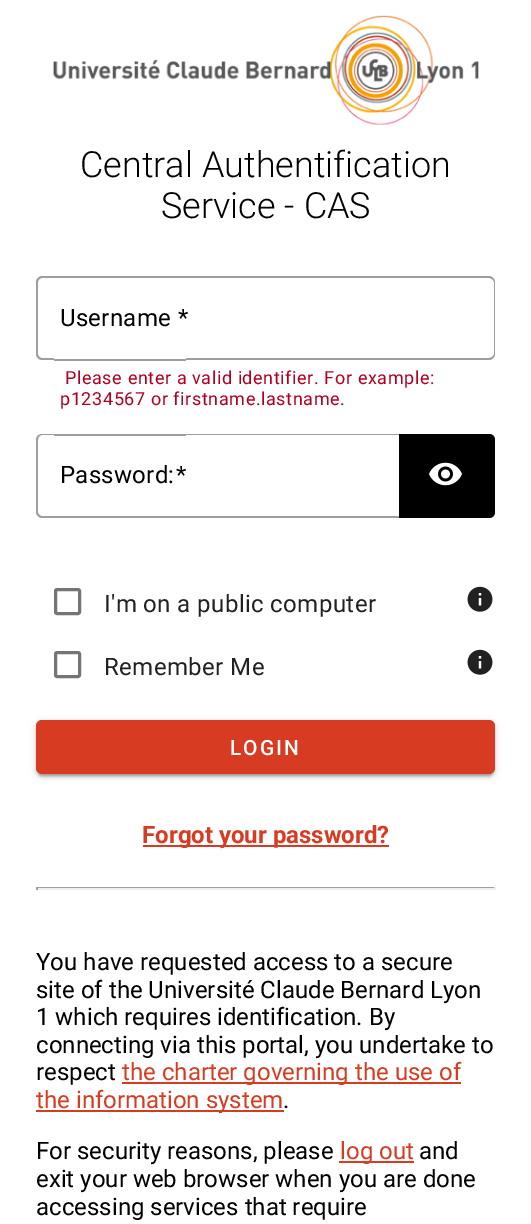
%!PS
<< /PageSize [531 1224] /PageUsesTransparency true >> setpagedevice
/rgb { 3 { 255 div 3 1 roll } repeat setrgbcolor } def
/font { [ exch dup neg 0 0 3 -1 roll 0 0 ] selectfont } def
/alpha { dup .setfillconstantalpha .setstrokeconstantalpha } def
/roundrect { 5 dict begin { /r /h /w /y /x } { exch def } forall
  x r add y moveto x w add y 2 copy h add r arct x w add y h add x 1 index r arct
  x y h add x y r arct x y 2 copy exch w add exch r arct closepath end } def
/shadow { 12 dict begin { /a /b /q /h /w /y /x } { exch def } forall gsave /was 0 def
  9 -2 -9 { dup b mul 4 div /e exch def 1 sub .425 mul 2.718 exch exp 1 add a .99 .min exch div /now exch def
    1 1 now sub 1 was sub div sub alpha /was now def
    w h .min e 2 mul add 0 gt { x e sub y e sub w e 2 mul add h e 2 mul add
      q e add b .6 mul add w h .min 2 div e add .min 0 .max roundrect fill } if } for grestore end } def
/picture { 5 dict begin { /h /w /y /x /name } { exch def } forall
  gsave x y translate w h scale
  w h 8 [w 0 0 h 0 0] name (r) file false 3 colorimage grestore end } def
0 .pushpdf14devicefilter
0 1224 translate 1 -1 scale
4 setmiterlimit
255 255 255 rgb
0 0 531 1224 rectfill
(img/1.rgb) 52 15 427 110 picture
158 158 158 rgb
42 276 moveto 54 276 lineto 54 360 lineto 42 360 lineto 39 360 36 357 36 354 curveto 36 282 lineto 36 279 39 276 42 276 curveto closepath 42 278 moveto 54 278 lineto 54 358 lineto 42 358 lineto 40 358 38 356 38 354 curveto 38 282 lineto 38 280 40 278 42 278 curveto closepath eofill
54 276 132 2 rectfill
54 359 132 2 rectfill
186 276 moveto 489 276 lineto 492 276 495 279 495 282 curveto 495 354 lineto 495 357 492 360 489 360 curveto 186 360 lineto closepath 186 278 moveto 489 278 lineto 491 278 494 280 494 282 curveto 494 354 lineto 494 356 491 358 489 358 curveto 186 358 lineto closepath eofill
42 434 moveto 54 434 lineto 54 518 lineto 42 518 lineto 39 518 36 515 36 512 curveto 36 440 lineto 36 436 39 434 42 434 curveto closepath 42 435 moveto 54 435 lineto 54 516 lineto 42 516 lineto 40 516 38 514 38 512 curveto 38 440 lineto 38 437 40 435 42 435 curveto closepath eofill
54 434 132 2 rectfill
54 516 132 2 rectfill
0 0 0 rgb
399 434 moveto 489 434 lineto 492.5 434 495 436.5 495 440 curveto 495 512 lineto 495 515.5 492.5 518 489 518 curveto 399 518 lineto closepath fill
(img/2.rgb) 429 462 33 24 picture
0.38 alpha
186 434 moveto 489 434 lineto 492 434 495 436 495 440 curveto 495 512 lineto 495 515 492 518 489 518 curveto 186 518 lineto closepath 186 435 moveto 489 435 lineto 491 435 494 437 494 440 curveto 494 512 lineto 494 514 491 516 489 516 curveto 186 516 lineto closepath eofill
1 alpha
117 117 117 rgb
3 setlinewidth
55.5 589.5 24 24 1.5 roundrect stroke
(img/3.rgb) 467 586 26 26 picture
55.5 652.5 24 24 1.5 roundrect stroke
(img/3.rgb) 467 649 26 26 picture
0 0 0 rgb
36 722 459 54 6 4 0.12 shadow
36 723 459 54 6 1.5 0.14 shadow
39 728 453 48 3 1 0.2 shadow
215 59 34 rgb
36 720 459 54 6 roundrect fill
[
  [143 845 246 2 215 59 34]
  [36 887 459 1 159 159 159]
  [494 887 2 3 238 238 238]
  [36 888 459 2 238 238 238]
  [36 887 2 3 159 159 159]
  [122 1082 339 2 215 59 34]
  [36 1110 248 2 215 59 34]
  [339 1161 75 2 215 59 34]
] { aload pop rgb rectfill } forall
/Roboto-Light 36 font
0 0 0 rgb
80 177 moveto (Central Authentification) show
161 218 moveto (Service - CAS) show
/Roboto-Regular 24 font
60 326 moveto 0.25 0 (Username) ashow
178 326 moveto 0.25 0 (*) ashow
/Roboto-Regular 18 font
176 0 32 rgb
65 384 moveto 0.6 0 (Please enter a valid identifier. For example:) ashow
60 405 moveto 0.6 0 (p1234567 or firstname.lastname.) ashow
/Roboto-Regular 24 font
0 0 0 rgb
60 483 moveto 0.25 0 (Password:) ashow
176 483 moveto 0.25 0 (*) ashow
33 33 33 rgb
104 612 moveto 0.4 0 (I'm on a public computer) ashow
104 675 moveto 0.4 0 (Remember Me) ashow
/Roboto-Medium 21 font
255 255 255 rgb
230 755 moveto 2 0 (LOGIN) ashow
/Roboto-Bold 24 font
215 59 34 rgb
142 843 moveto (Forgot your password?) show
/Roboto-Regular 24 font
0 0 0 rgb
[
  [(You have requested access to a secure) 36 970]
  [(site of the Université Claude Bernard Lyon) 36 998]
  [(1 which requires identification. By) 36 1025]
  [(connecting via this portal, you undertake to) 36 1053]
  [(respect) 36 1080]
] { aload pop moveto show } forall
215 59 34 rgb
122 1080 moveto (the charter governing the use of) show
36 1108 moveto (the information system) show
0 0 0 rgb
283 1108 moveto (.) show
36 1159 moveto (For security reasons, please) show
215 59 34 rgb
340 1159 moveto (log out) show
0 0 0 rgb
[
  [(and) 419 1159]
  [(exit your web browser when you are done) 36 1187]
  [(accessing services that require) 36 1215]
] { aload pop moveto show } forall
.poppdf14devicefilter showpage
